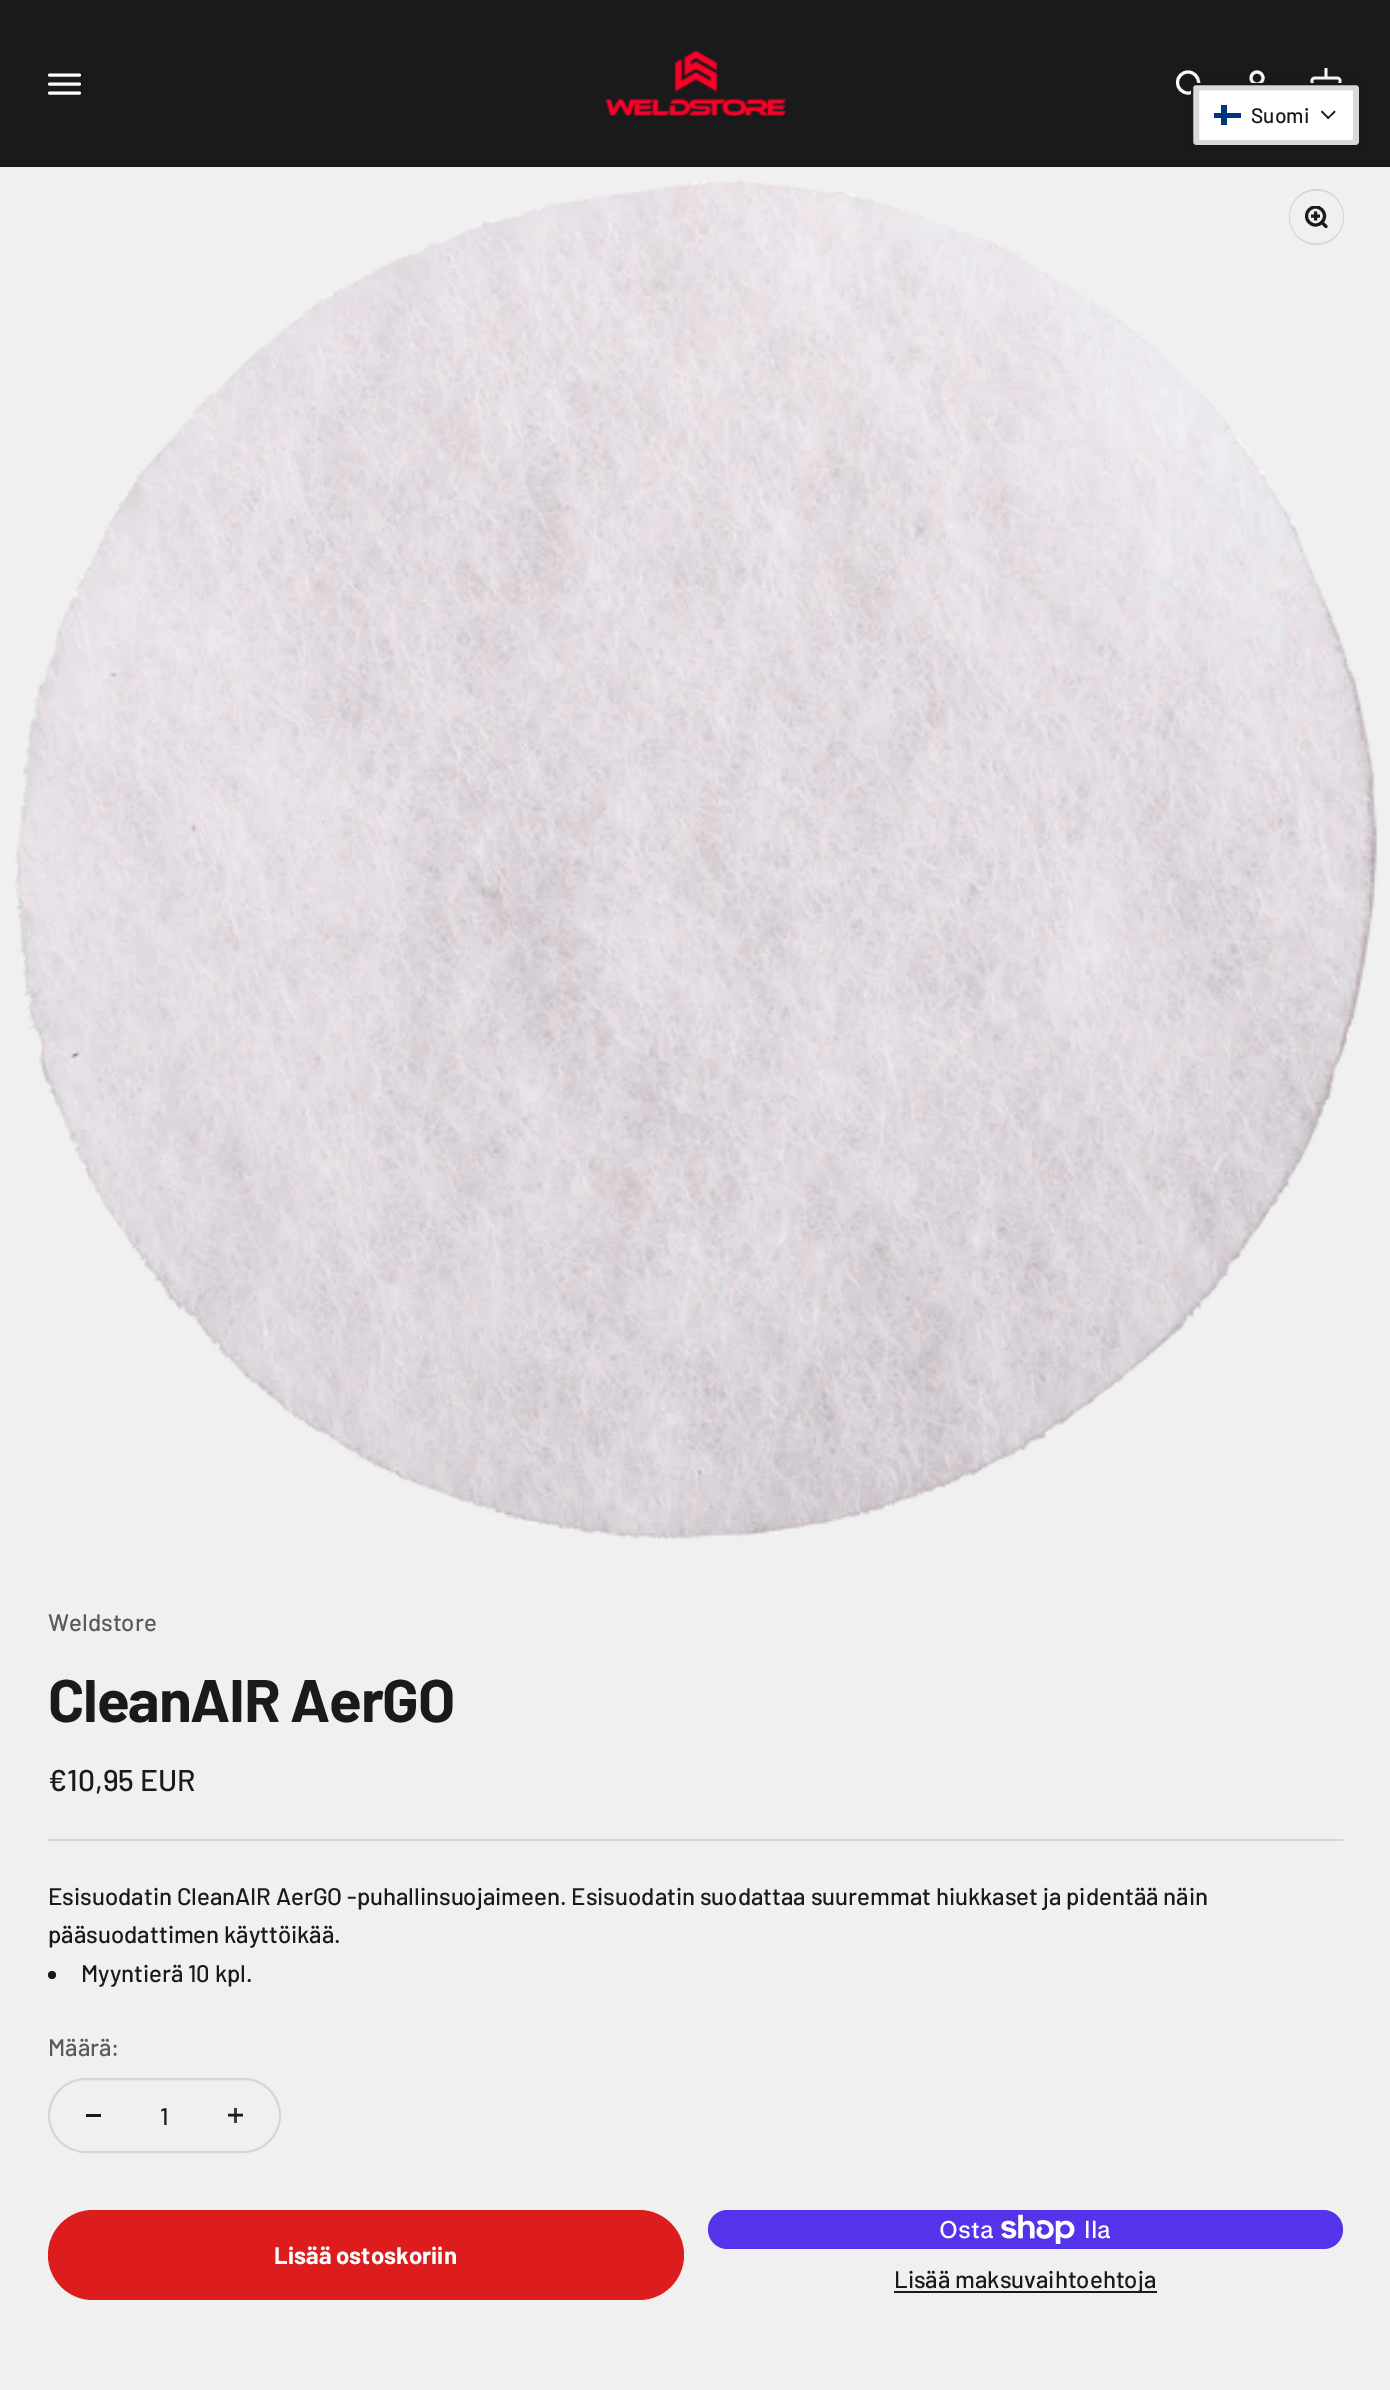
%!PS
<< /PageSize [1390 2390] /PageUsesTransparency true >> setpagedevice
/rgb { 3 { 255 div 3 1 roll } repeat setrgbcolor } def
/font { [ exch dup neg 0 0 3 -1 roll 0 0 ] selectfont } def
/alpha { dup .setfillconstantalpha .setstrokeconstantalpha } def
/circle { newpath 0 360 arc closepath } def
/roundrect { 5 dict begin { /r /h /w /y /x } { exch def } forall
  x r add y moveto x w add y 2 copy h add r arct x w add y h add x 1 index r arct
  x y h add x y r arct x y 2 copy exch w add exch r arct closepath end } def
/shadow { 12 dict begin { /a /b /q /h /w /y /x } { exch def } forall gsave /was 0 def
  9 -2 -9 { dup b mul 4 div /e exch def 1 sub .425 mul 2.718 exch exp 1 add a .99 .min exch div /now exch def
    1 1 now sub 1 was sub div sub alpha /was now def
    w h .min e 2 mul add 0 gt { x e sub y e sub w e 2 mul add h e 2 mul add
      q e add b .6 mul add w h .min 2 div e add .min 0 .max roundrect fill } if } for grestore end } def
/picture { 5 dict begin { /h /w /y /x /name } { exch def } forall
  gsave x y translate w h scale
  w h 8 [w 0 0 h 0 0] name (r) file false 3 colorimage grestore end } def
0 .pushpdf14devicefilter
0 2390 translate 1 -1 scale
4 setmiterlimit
240 240 240 rgb
0 0 1390 2390 rectfill
26 26 26 rgb
0 0 1390 167 rectfill
255 255 255 rgb
3 setlinewidth
1 setlinecap
49.5 75 moveto 79.5 75 lineto 49.5 84 moveto 79.5 84 lineto 49.5 93 moveto 79.5 93 lineto stroke
(img/1.rgb) 605 51 181 65 picture
0 setlinecap
1188 82.5 10.5 circle stroke
1257 78 6 circle stroke
(img/2.rgb) 1310 68 32 15 picture
0 0 0 rgb
1191 83 170 64 5 7.5 0.15 shadow
255 255 255 rgb
1192 84 168 62 4 roundrect gsave fill grestore
26 26 26 rgb
2 setlinewidth
stroke
0.15 alpha
0 0 0 rgb
6 setlinewidth
1196 87 160 56 2 roundrect stroke
1 alpha
0 53 128 rgb
1214 113 27 5 rectfill
1221 105 6 20 rectfill
26 26 26 rgb
1334.5 110.5 moveto 1335.5 112 lineto 1328 119 lineto 1327 118 lineto closepath fill
1322 110.5 moveto 1329.5 118 lineto 1328 119 lineto 1321 112 lineto closepath fill
(img/3.rgb) 14 180 1364 1361 picture
214 214 214 rgb
2 setlinewidth
1290 190 53 54 26.5 roundrect stroke
240 240 240 rgb
1290 191 53 52 26 roundrect fill
gsave
1305 206 23 22 rectclip
26 26 26 rgb
3 setlinewidth
1315.5 216 9 circle stroke
grestore
26 26 26 rgb
3 setlinewidth
1 setlinecap
1 setlinejoin
1322 222.5 moveto 1326 226.5 lineto stroke
0 setlinecap
0 setlinejoin
1315.5 211.5 moveto 1315.5 220.5 lineto 1311 216 moveto 1320 216 lineto stroke
214 214 214 rgb
48 1839 1295 2 rectfill
26 26 26 rgb
52 1975 4 circle fill
214 214 214 rgb
2 setlinewidth
49 2079 231 73 36.5 roundrect stroke
26 26 26 rgb
86 2114 15 3 rectfill
62 62 62 rgb
234 2108 3 15 rectfill
26 26 26 rgb
2.5 setlinewidth
228 2115 moveto 243 2115 lineto stroke
221 29 29 rgb
48 2210 636 90 45 roundrect fill
84 51 235 rgb
708 2210 635 39 19.5 roundrect fill
(img/4.rgb) 1001 2214 74 30 picture
26 26 26 rgb
894 2291 263 2 rectfill
/Barlow-Medium 21 font
1251 123 moveto (Suomi) show
/Barlow-Medium 24 font
90 90 90 rgb
48 1631 moveto (Weldstore) show
/Barlow-Bold 60 font
26 26 26 rgb
48 1722 moveto -1.25 0 (CleanAIR AerGO) ashow
/Barlow-Medium 30 font
48 1791 moveto (€10,95 EUR) show
/Barlow-Medium 24 font
[
  [(Esisuodatin CleanAIR AerGO -puhallinsuojaimeen. Esisuodatin suodattaa suuremmat hiukkaset ja pidentää näin) 48 1905]
  [(pääsuodattimen käyttöikää.) 48 1943]
  [(Myyntierä 10 kpl.) 81 1982]
] { aload pop moveto show } forall
90 90 90 rgb
48 2056 moveto (Määrä:) show
26 26 26 rgb
160 2125 moveto (1) show
/Barlow-Bold 24 font
255 255 255 rgb
274 2264 moveto (Lisää ostoskoriin) show
/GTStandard-Medium 24 font
939 2238 moveto (Osta) show
1084 2238 moveto (lla) show
/Barlow-Medium 24 font
26 26 26 rgb
894 2288 moveto (Lisää maksuvaihtoehtoja) show
.poppdf14devicefilter showpage
